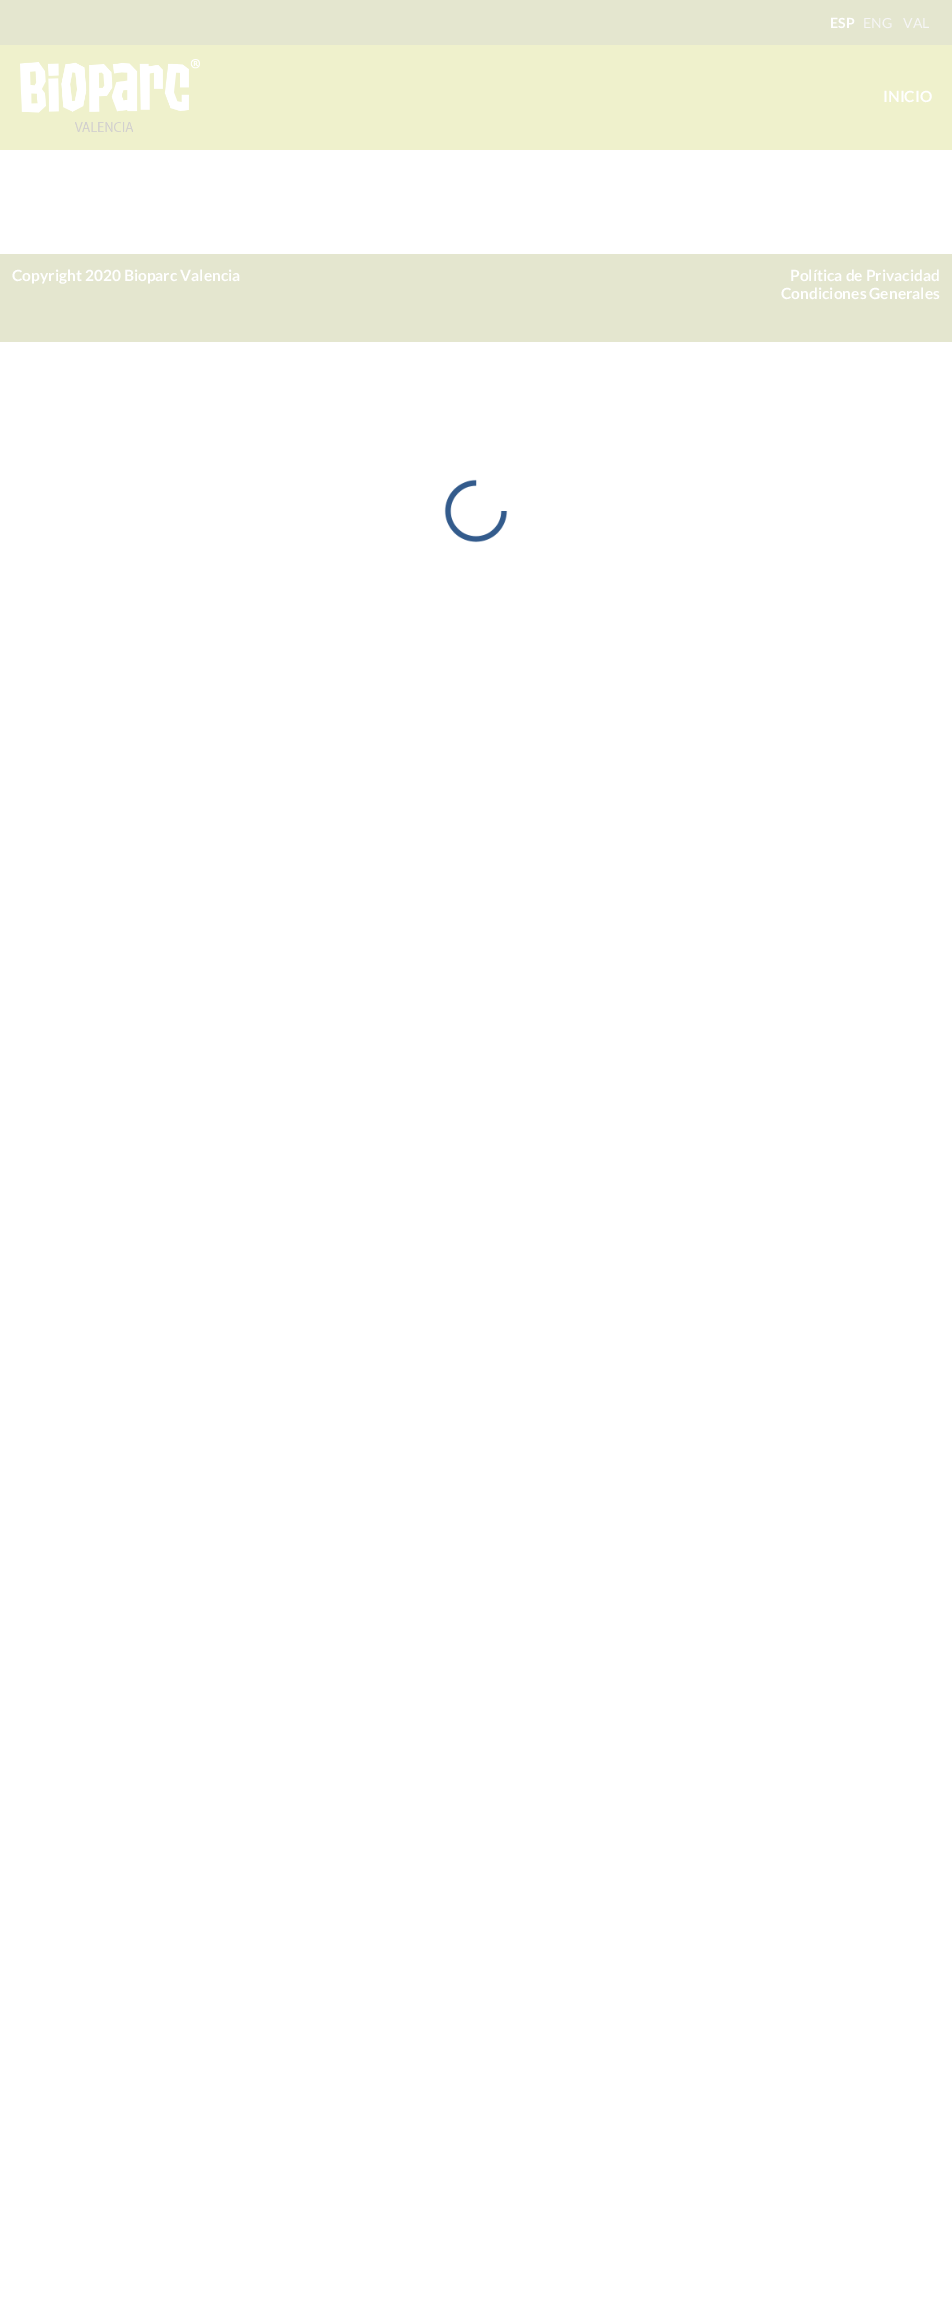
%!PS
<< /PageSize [952 2311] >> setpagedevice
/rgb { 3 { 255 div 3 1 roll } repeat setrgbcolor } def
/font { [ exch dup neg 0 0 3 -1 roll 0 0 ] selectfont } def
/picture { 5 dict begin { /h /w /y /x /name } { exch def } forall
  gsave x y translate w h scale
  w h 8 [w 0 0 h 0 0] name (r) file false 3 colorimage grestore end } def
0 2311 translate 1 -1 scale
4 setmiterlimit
255 255 255 rgb
0 0 952 2311 rectfill
239 241 204 rgb
0 45 952 105 rectfill
228 230 207 rgb
0 0 952 45 rectfill
(img/1.rgb) 20 59 180 73 picture
0 254 952 88 rectfill
(img/2.rgb) 444 479 64 64 picture
/Lato-Bold 14 font
255 255 255 rgb
830 28 moveto (ESP) show
/Lato-Regular 14 font
246 246 246 rgb
863 28 moveto (ENG) show
903 28 moveto (VAL) show
/Lato-Bold 15.5 font
255 255 255 rgb
[
  [(INICIO) 883 102]
  [(Copyright 2020 Bioparc Valencia) 12 281]
  [(Política de Privacidad) 790 281]
  [(Condiciones Generales) 781 299]
] { aload pop moveto show } forall
showpage
